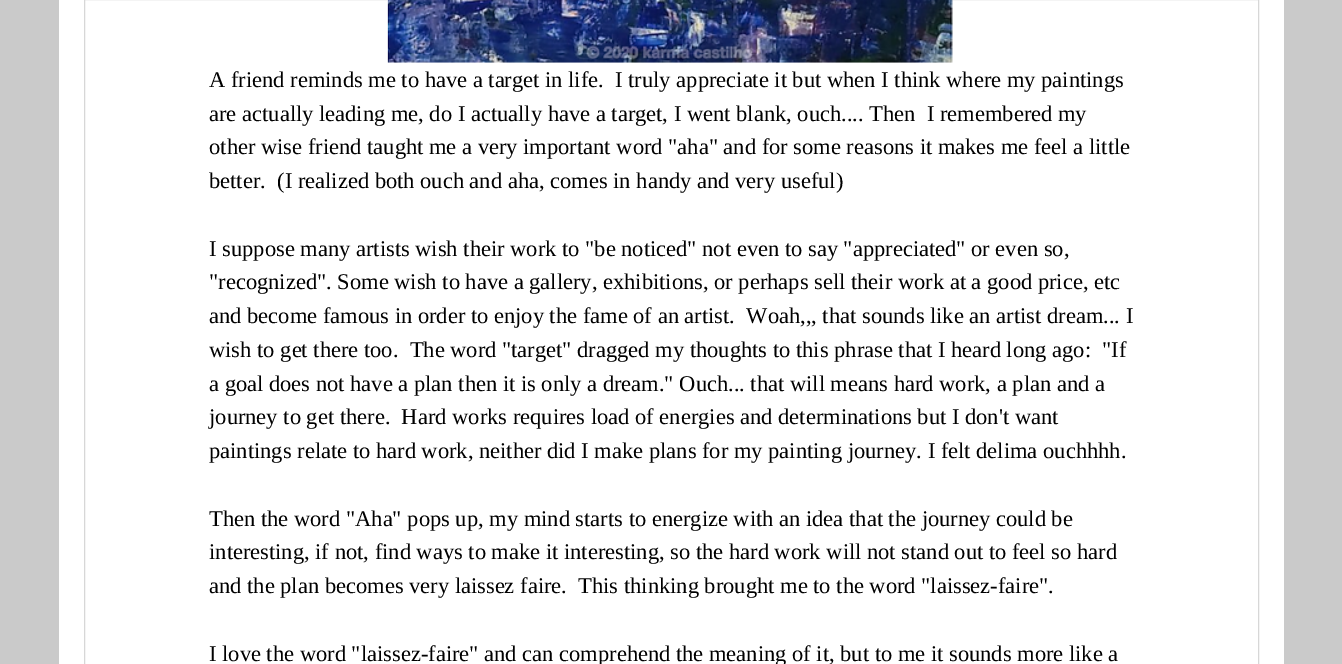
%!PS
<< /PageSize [1342 664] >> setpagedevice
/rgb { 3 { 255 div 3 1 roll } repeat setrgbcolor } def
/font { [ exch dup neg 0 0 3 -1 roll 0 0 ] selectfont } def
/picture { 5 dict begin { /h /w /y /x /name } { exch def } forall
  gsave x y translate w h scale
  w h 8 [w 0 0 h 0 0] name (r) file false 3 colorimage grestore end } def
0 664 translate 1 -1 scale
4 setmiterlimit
202 202 202 rgb
0 0 1342 664 rectfill
255 255 255 rgb
59 0 1225 664 rectfill
215 215 215 rgb
84.5 -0.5 1174 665 rectstroke
(img/1.rgb) 387 0 566 63 picture
/LiberationSerif-Regular 22.5 font
0 0 0 rgb
[
  [(A friend reminds me to have a target in life.  I truly appreciate it but when I think where my paintings) 209 87]
  [(are actually leading me, do I actually have a target, I went blank, ouch.... Then  I remembered my) 209 121]
  [(other wise friend taught me a very important word "aha" and for some reasons it makes me feel a little) 209 154]
  [(better.  \(I realized both ouch and aha, comes in handy and very useful\)) 209 188]
  [(I suppose many artists wish their work to "be noticed" not even to say "appreciated" or even so,) 209 256]
  [("recognized". Some wish to have a gallery, exhibitions, or perhaps sell their work at a good price, etc) 209 289]
  [(and become famous in order to enjoy the fame of an artist.  Woah,,, that sounds like an artist dream... I) 209 323]
  [(wish to get there too.  The word "target" dragged my thoughts to this phrase that I heard long ago:  "If) 209 357]
  [(a goal does not have a plan then it is only a dream." Ouch... that will means hard work, a plan and a) 209 391]
  [(journey to get there.  Hard works requires load of energies and determinations but I don't want) 209 424]
  [(paintings relate to hard work, neither did I make plans for my painting journey. I felt delima ouchhhh.) 209 458]
  [(Then the word "Aha" pops up, my mind starts to energize with an idea that the journey could be) 209 526]
  [(interesting, if not, find ways to make it interesting, so the hard work will not stand out to feel so hard) 209 559]
  [(and the plan becomes very laissez faire.  This thinking brought me to the word "laissez-faire".) 209 593]
  [(I love the word "laissez-faire" and can comprehend the meaning of it, but to me it sounds more like a) 209 661]
] { aload pop moveto show } forall
showpage
